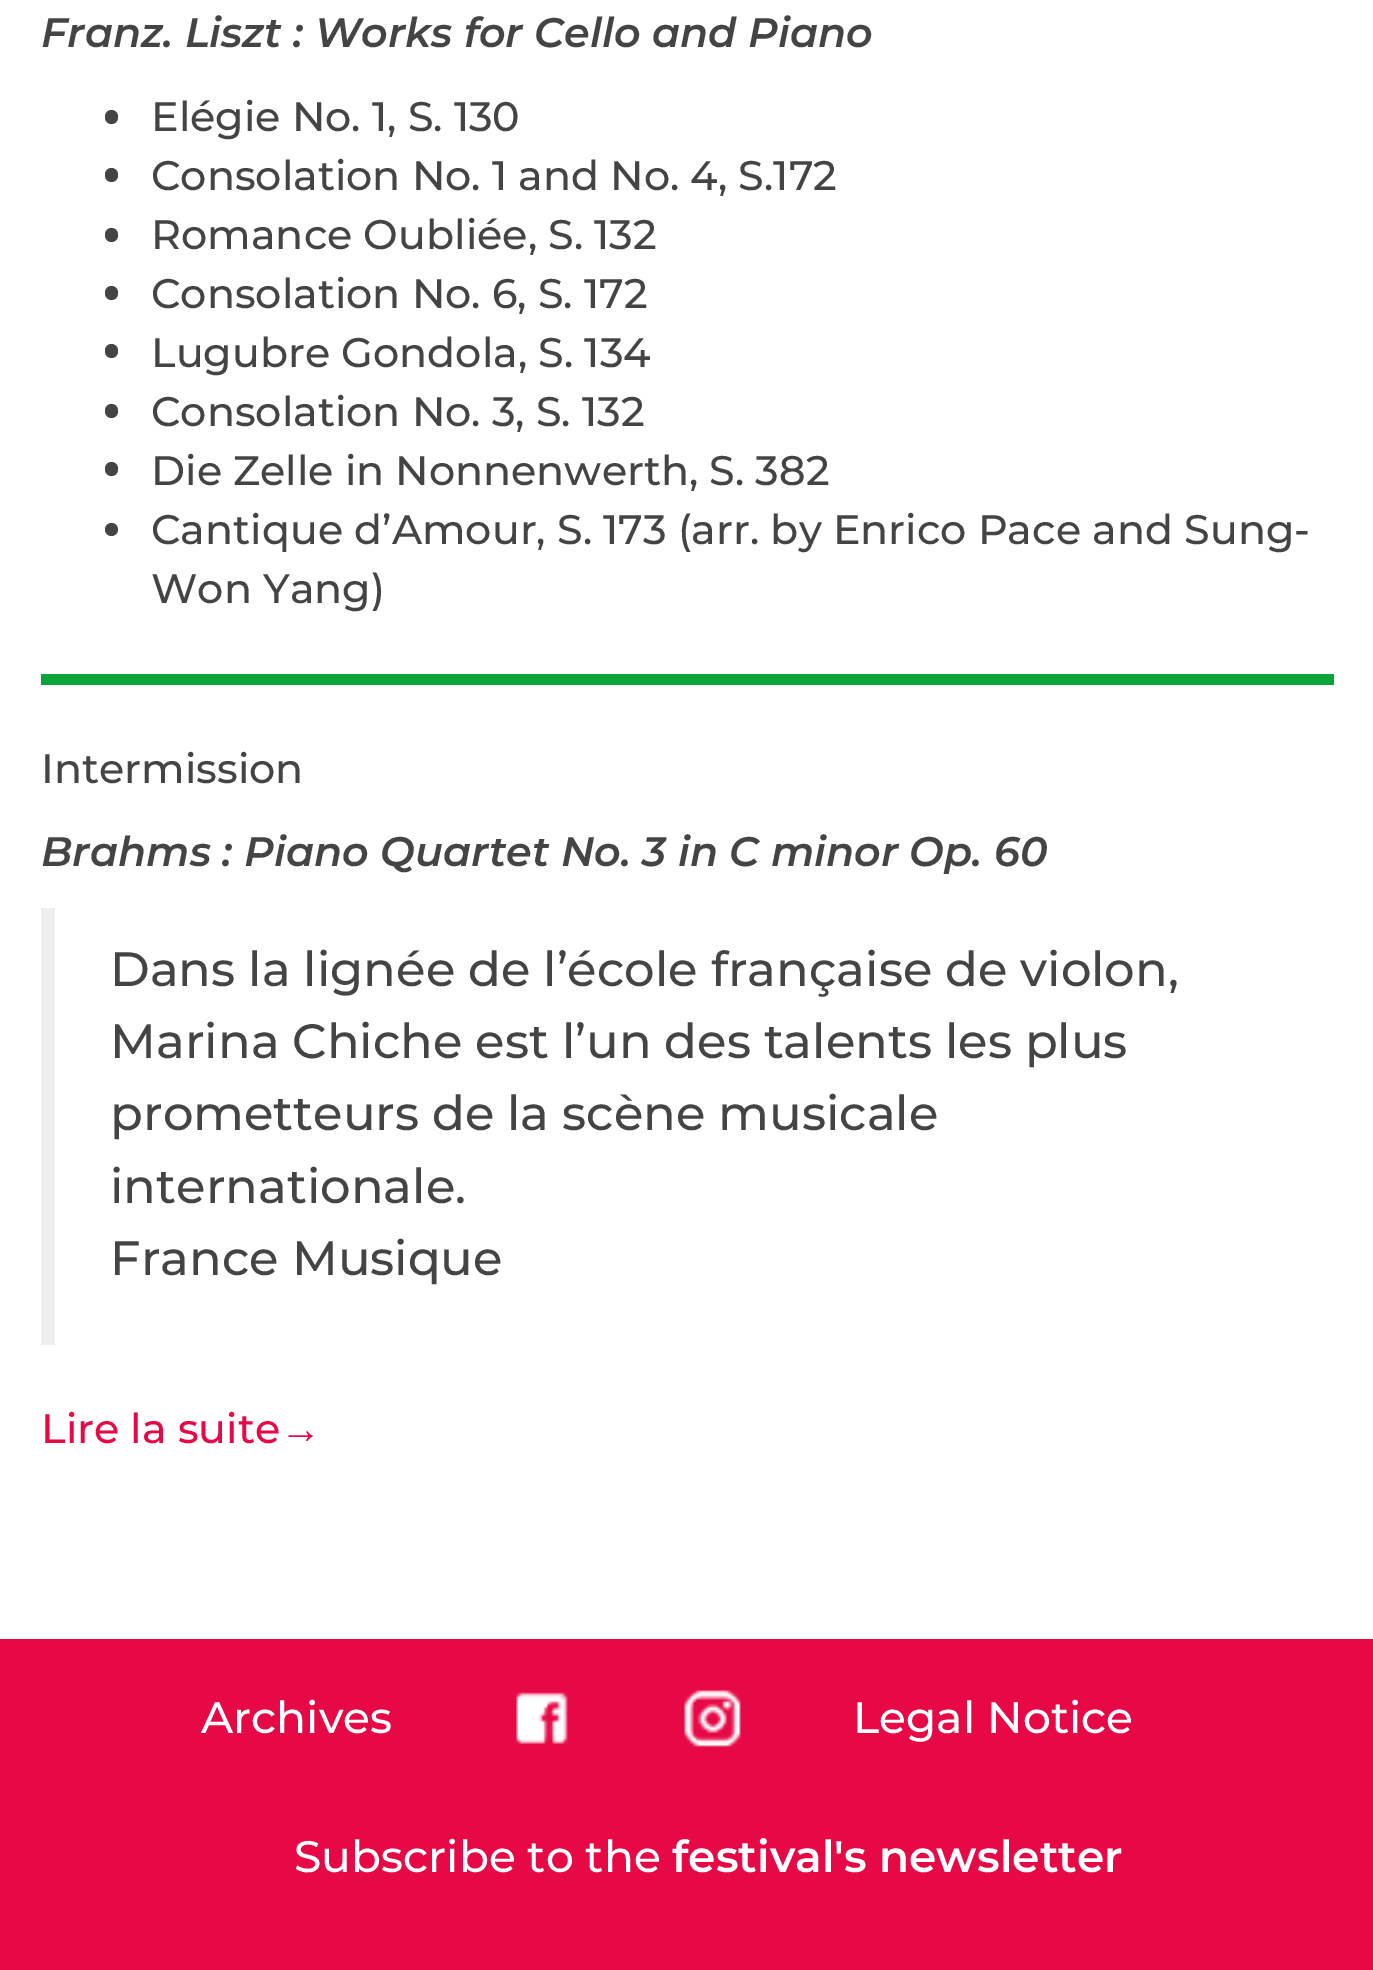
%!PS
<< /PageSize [1373 1970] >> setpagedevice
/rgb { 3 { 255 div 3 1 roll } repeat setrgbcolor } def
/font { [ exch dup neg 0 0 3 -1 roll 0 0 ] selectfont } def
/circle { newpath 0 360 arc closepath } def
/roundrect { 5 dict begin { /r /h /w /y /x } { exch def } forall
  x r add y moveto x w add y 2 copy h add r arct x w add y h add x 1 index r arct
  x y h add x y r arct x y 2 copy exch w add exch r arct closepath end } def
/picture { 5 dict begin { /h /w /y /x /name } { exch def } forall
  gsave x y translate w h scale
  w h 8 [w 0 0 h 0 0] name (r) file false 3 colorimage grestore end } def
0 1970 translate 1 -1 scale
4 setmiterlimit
255 255 255 rgb
0 0 1373 1970 rectfill
68 68 68 rgb
105 110 13 14 6.5 roundrect fill
105 168 13 14 6.5 roundrect fill
105 228 13 14 6.5 roundrect fill
105 286 13 14 6.5 roundrect fill
105 344 13 14 6.5 roundrect fill
105 404 13 14 6.5 roundrect fill
105 462 13 14 6.5 roundrect fill
111.5 529.5 6.5 circle fill
[
  [41 674 1293 11 10 164 56]
  [41 908 14 437 238 238 238]
  [0 1639 1373 331 230 9 70]
] { aload pop rgb rectfill } forall
(img/1.rgb) 516 1692 52 52 picture
(img/2.rgb) 684 1690 57 57 picture
/Montserrat-SemiBoldItalic 41.25 font
68 68 68 rgb
41 47 moveto (Franz. Liszt : Works for Cello and Piano) show
/Montserrat-Medium 41.25 font
[
  [(Elégie No. 1, S. 130) 151 131]
  [(Consolation No. 1 and No. 4, S.172) 151 190]
  [(Romance Oubliée, S. 132) 151 249]
  [(Consolation No. 6, S. 172) 151 308]
  [(Lugubre Gondola, S. 134) 151 367]
  [(Consolation No. 3, S. 132) 151 426]
  [(Die Zelle in Nonnenwerth, S. 382) 151 485]
  [(Cantique d’Amour, S. 173 \(arr. by Enrico Pace and Sung-) 151 544]
  [(Won Yang\)) 151 603]
  [(Intermission) 41 783]
] { aload pop moveto show } forall
/Montserrat-SemiBoldItalic 41.25 font
41 866 moveto (Brahms : Piano Quartet No. 3 in C minor Op. 60) show
/Montserrat-Medium 48.1 font
[
  [(Dans la lignée de l’école française de violon,) 110 986]
  [(Marina Chiche est l’un des talents les plus) 110 1058]
  [(prometteurs de la scène musicale) 110 1130]
  [(internationale.) 110 1203]
  [(France Musique) 110 1275]
] { aload pop moveto show } forall
/Montserrat-Medium 41.25 font
230 9 70 rgb
41 1443 moveto (Lire la suite) show
/LiberationSans-Regular 41.25 font
280 1443 moveto (→) show
/Montserrat-Medium 44 font
255 255 255 rgb
[
  [(Archives) 201 1733]
  [(Legal Notice) 853 1733]
  [(Subscribe to the) 294 1872]
] { aload pop moveto show } forall
/Montserrat-SemiBold 44 font
672 1872 moveto (festival's newsletter) show
showpage
